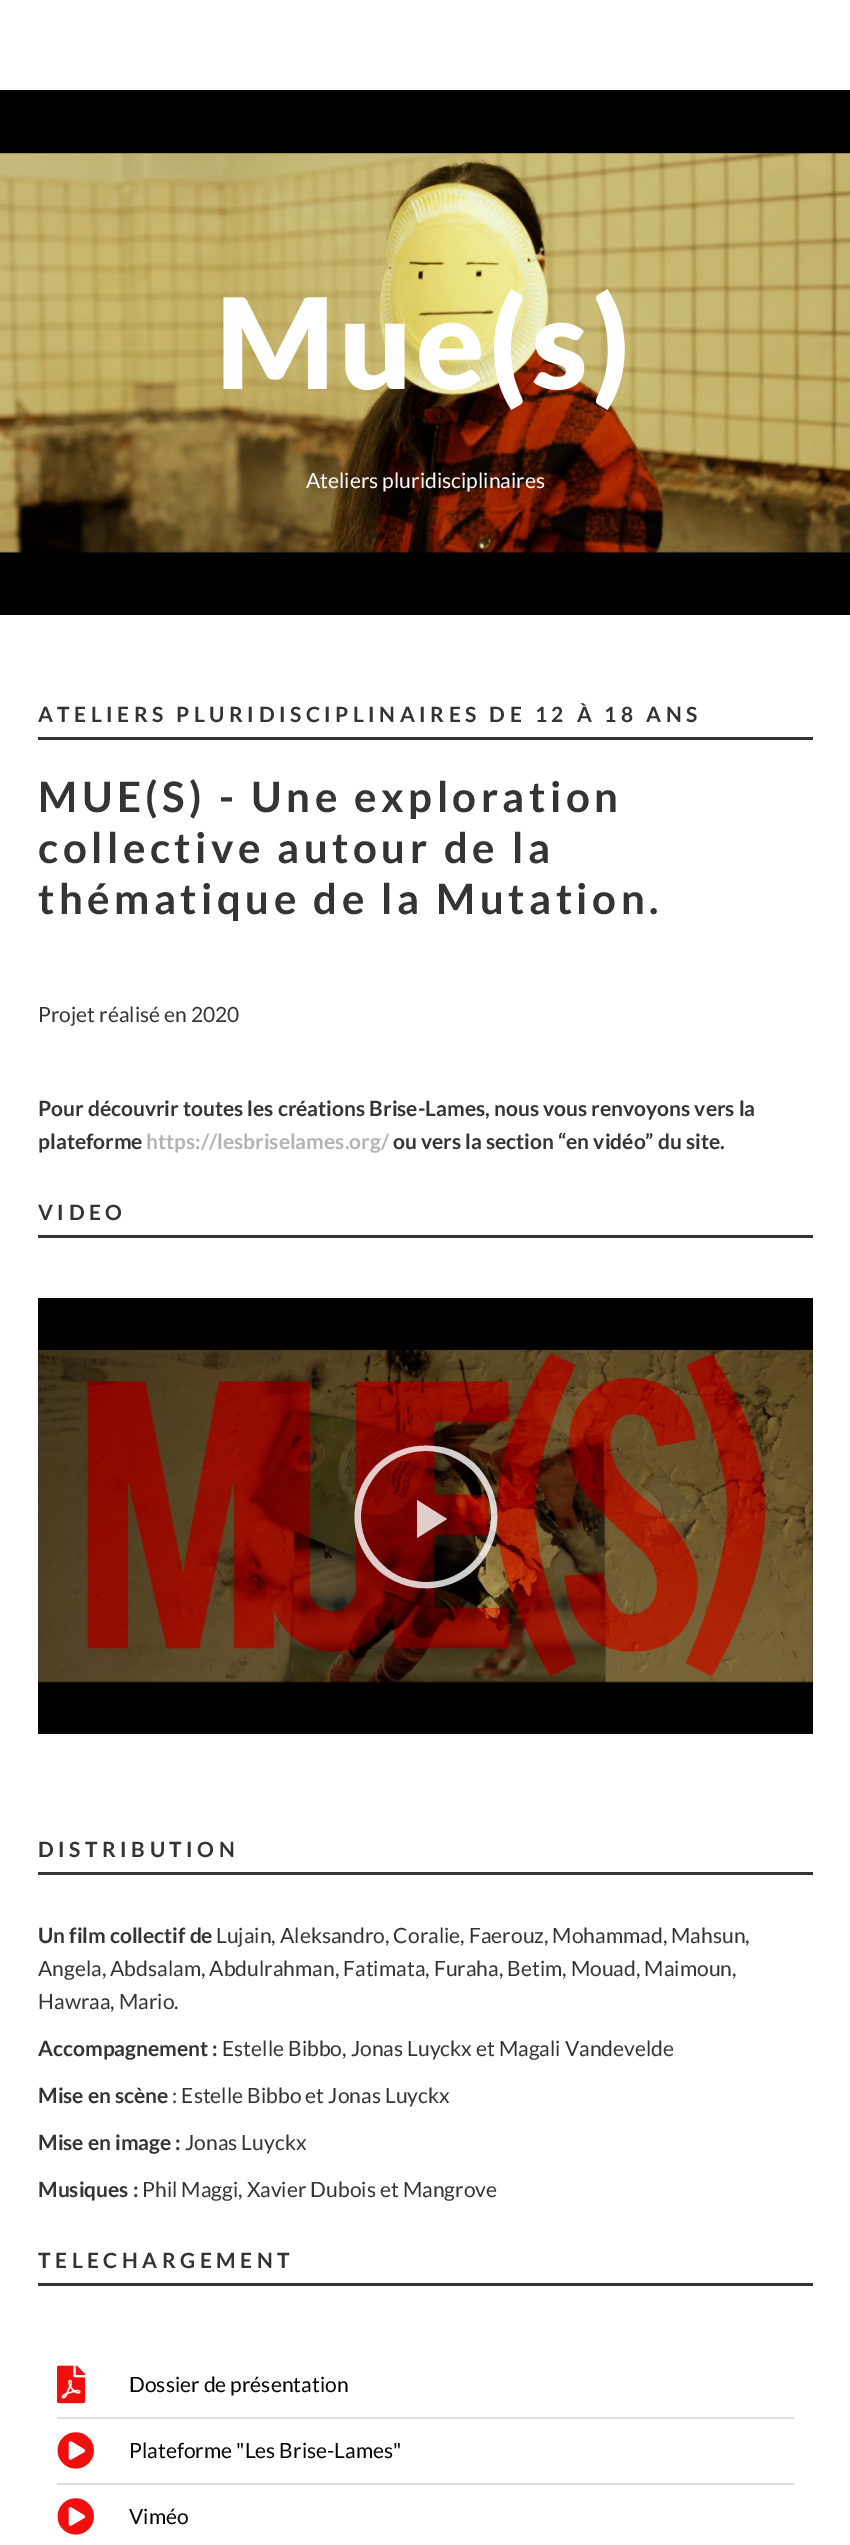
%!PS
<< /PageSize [850 2545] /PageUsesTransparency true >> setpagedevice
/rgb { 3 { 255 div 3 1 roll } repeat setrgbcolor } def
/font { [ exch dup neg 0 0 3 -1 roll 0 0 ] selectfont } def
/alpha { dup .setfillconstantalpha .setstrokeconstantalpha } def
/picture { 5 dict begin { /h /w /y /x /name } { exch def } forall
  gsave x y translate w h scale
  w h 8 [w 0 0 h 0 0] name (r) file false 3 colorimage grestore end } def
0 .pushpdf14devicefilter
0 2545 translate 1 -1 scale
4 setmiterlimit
255 255 255 rgb
0 0 850 2545 rectfill
(img/1.rgb) 0 90 850 525 picture
[
  [38 737 775 3 52 52 52]
  [38 1235 775 3 52 52 52]
  [38 1298 775 436 0 0 0]
] { aload pop rgb rectfill } forall
(img/2.rgb) 38 1349 775 334 picture
0.8 alpha
255 255 255 rgb
477 1466 moveto 465 1454 450 1447 433 1446 curveto 366 1440 329 1518 375 1567 curveto 387 1579 402 1586 419 1588 curveto 465 1592 501 1555 497 1509 curveto 495 1493 488 1478 477 1466 curveto closepath 472 1470 moveto 514 1513 482 1585 423 1582 curveto 408 1581 394 1576 383 1565 curveto 370 1553 362 1538 361 1520 curveto 360 1501 367 1484 380 1470 curveto 407 1444 445 1445 472 1470 curveto closepath 417 1500 moveto 417 1538 lineto 447 1519 lineto closepath fill
1 alpha
52 52 52 rgb
38 1872 775 3 rectfill
38 2283 775 3 rectfill
(img/3.rgb) 57 2365 29 39 picture
221 221 221 rgb
57 2417 737 2 rectfill
(img/4.rgb) 57 2432 37 37 picture
57 2483 737 2 rectfill
(img/4.rgb) 57 2498 37 37 picture
/Lato-Black 126 font
255 255 255 rgb
216 389 moveto 4.5 0 (Mue\(s\)) ashow
/Lato-Regular 21 font
306 488 moveto (Ateliers pluridisciplinaires) show
/Lato-Bold 21 font
52 52 52 rgb
38 722 moveto 4.5 0 (ATELIERS PLURIDISCIPLINAIRES DE 12 À 18 ANS) ashow
/Lato-Bold 42 font
38 812 moveto 4.5 0 (MUE\(S\) - Une exploration) ashow
38 863 moveto 4.5 0 (collective autour de la) ashow
38 914 moveto 4.5 0 (thématique de la Mutation.) ashow
/Lato-Regular 21 font
38 1022 moveto (Projet réalisé en 2020) show
/Lato-Bold 21 font
38 1116 moveto (Pour découvrir toutes les créations Brise-Lames, nous vous renvoyons vers la) show
38 1149 moveto (plateforme) show
179 179 179 rgb
146 1149 moveto (https://lesbriselames.org/) show
52 52 52 rgb
393 1149 moveto (ou vers la section “en vidéo” du site.) show
38 1220 moveto 4.5 0 (VIDEO) ashow
38 1857 moveto 4.5 0 (DISTRIBUTION) ashow
38 1943 moveto (Un film collectif de) show
/Lato-Regular 21 font
[
  [(Lujain, Aleksandro, Coralie, Faerouz, Mohammad, Mahsun,) 216 1943]
  [(Angela, Abdsalam, Abdulrahman, Fatimata, Furaha, Betim, Mouad, Maimoun,) 38 1976]
  [(Hawraa, Mario.) 38 2009]
] { aload pop moveto show } forall
/Lato-Bold 21 font
38 2056 moveto (Accompagnement :) show
/Lato-Regular 21 font
222 2056 moveto (Estelle Bibbo, Jonas Luyckx et Magali Vandevelde) show
/Lato-Bold 21 font
38 2103 moveto (Mise en scène) show
/Lato-Regular 21 font
172 2103 moveto (: Estelle Bibbo et Jonas Luyckx) show
/Lato-Bold 21 font
38 2150 moveto (Mise en image :) show
/Lato-Regular 21 font
185 2150 moveto (Jonas Luyckx) show
/Lato-Bold 21 font
38 2197 moveto (Musiques :) show
/Lato-Regular 21 font
142 2197 moveto (Phil Maggi, Xavier Dubois et Mangrove) show
/Lato-Bold 21 font
38 2268 moveto 4.5 0 (TELECHARGEMENT) ashow
/Lato-Regular 21 font
3 3 3 rgb
[
  [(Dossier de présentation) 129 2392]
  [(Plateforme "Les Brise-Lames") 129 2458]
  [(Viméo) 129 2524]
] { aload pop moveto show } forall
.poppdf14devicefilter showpage
